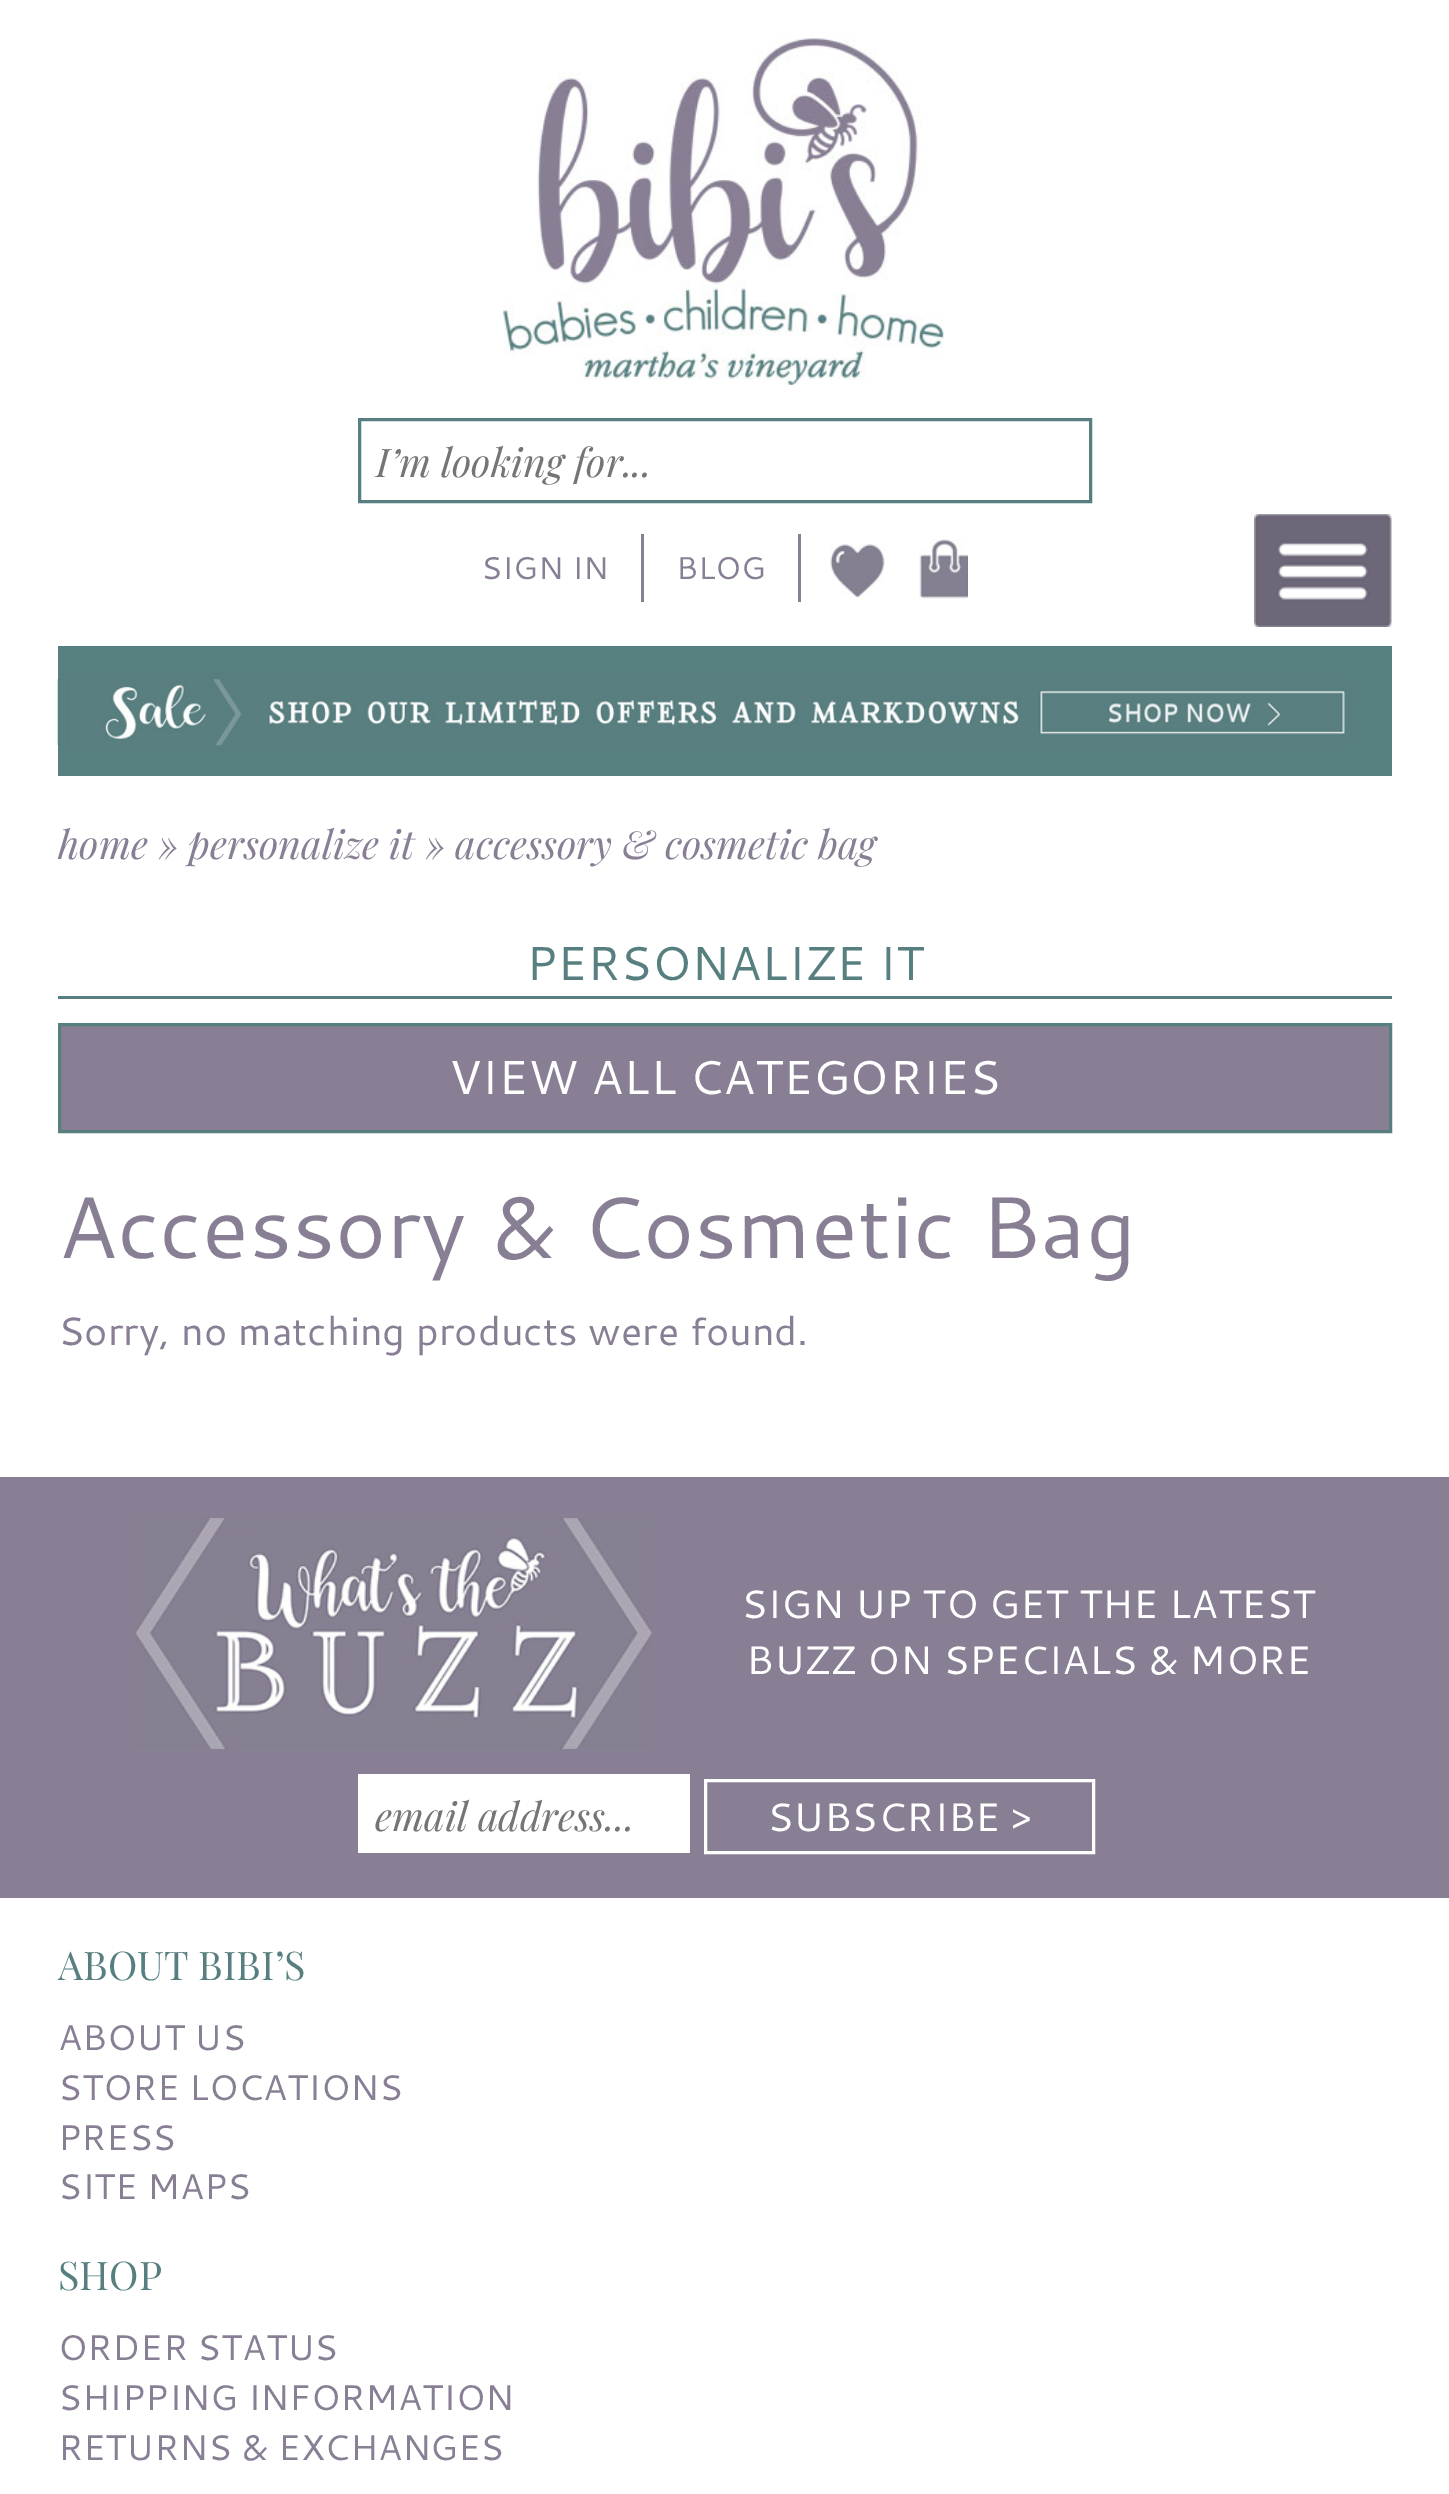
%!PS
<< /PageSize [1449 2494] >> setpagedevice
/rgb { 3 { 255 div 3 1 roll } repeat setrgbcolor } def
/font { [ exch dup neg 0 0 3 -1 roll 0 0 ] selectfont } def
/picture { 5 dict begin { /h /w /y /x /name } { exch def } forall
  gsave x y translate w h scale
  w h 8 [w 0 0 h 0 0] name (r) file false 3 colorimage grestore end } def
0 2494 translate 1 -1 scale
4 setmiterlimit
255 255 255 rgb
0 0 1449 2494 rectfill
(img/1.rgb) 503 38 441 347 picture
87 127 128 rgb
3 setlinewidth
359.5 419.5 731 82 rectstroke
136 127 148 rgb
641 534 3 68 rectfill
798 534 3 68 rectfill
(img/2.rgb) 830 543 56 58 picture
(img/3.rgb) 919 539 49 62 picture
(img/4.rgb) 1254 514 138 113 picture
87 127 128 rgb
58 646 1334 130 rectfill
(img/5.rgb) 57 679 1289 67 picture
58 996 1334 3 rectfill
136 127 148 rgb
59.5 1024.5 moveto 1390.5 1024.5 lineto 1390.5 1131.5 lineto 59.5 1131.5 lineto closepath gsave fill grestore
87 127 128 rgb
stroke
136 127 148 rgb
0 1477 1449 421 rectfill
(img/6.rgb) 135 1518 517 231 picture
255 255 255 rgb
358 1774 332 79 rectfill
705.5 1780.5 388 72 rectstroke
/PlayfairDisplay-Italic 39.6 font
117 117 117 rgb
376 477 moveto (I’m looking for...) show
/Cantarell-Regular 31.5 font
136 127 148 rgb
481 579 moveto (SIGN IN) show
676 579 moveto (BLOG) show
/PlayfairDisplay-Italic 39.6 font
58 859 moveto (home » personalize it » accessory & cosmetic bag) show
/Cantarell-Regular 47.5 font
87 127 128 rgb
526 980 moveto (PERSONALIZE IT) show
255 255 255 rgb
449 1094 moveto (VIEW ALL CATEGORIES) show
/Cantarell-Regular 87.1 font
136 127 148 rgb
58 1258 moveto (Accessory & Cosmetic Bag) show
/Cantarell-Regular 39.6 font
58 1345 moveto (Sorry, no matching products were found.) show
255 255 255 rgb
741 1618 moveto (SIGN UP TO GET THE LATEST) show
746 1674 moveto (BUZZ ON SPECIALS & MORE) show
/PlayfairDisplay-Italic 39.6 font
117 117 117 rgb
375 1831 moveto (email address...) show
/Cantarell-Regular 39.6 font
255 255 255 rgb
767 1831 moveto (SUBSCRIBE >) show
/PlayfairDisplay-Regular 39.6 font
87 127 128 rgb
58 1980 moveto (ABOUT BIBI’S) show
/Cantarell-Regular 35.6 font
136 127 148 rgb
[
  [(ABOUT US) 58 2050]
  [(STORE LOCATIONS) 58 2100]
  [(PRESS) 58 2150]
  [(SITE MAPS) 58 2199]
] { aload pop moveto show } forall
/PlayfairDisplay-Regular 39.6 font
87 127 128 rgb
58 2290 moveto (SHOP) show
/Cantarell-Regular 35.6 font
136 127 148 rgb
[
  [(ORDER STATUS) 58 2360]
  [(SHIPPING INFORMATION) 58 2410]
  [(RETURNS & EXCHANGES) 58 2460]
] { aload pop moveto show } forall
showpage
